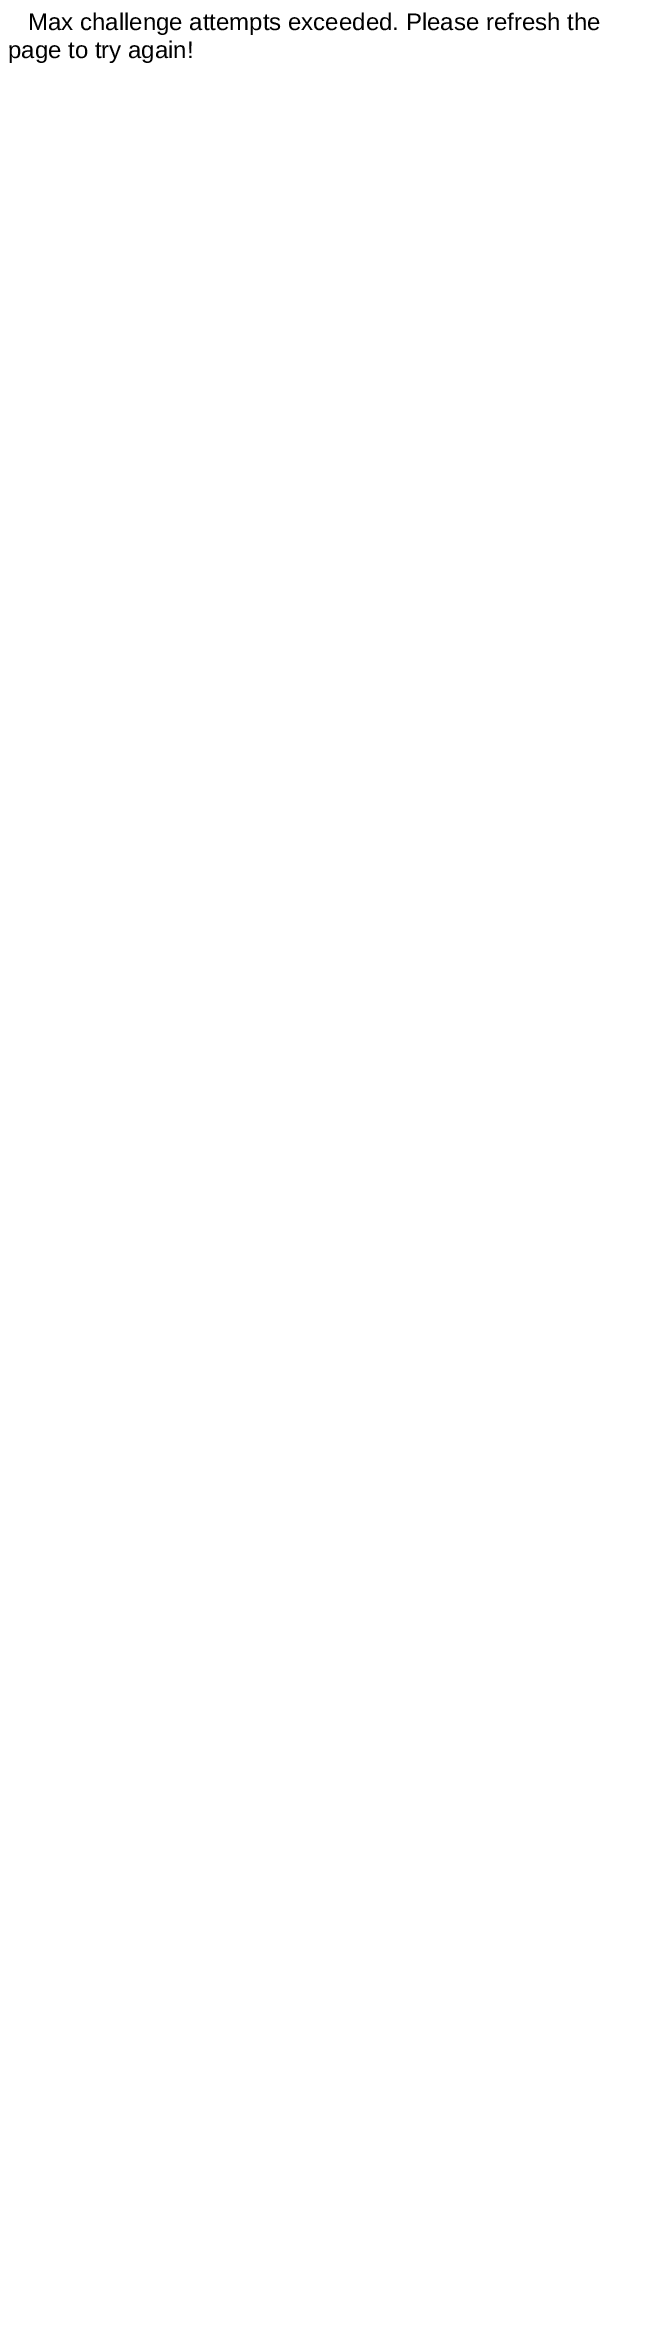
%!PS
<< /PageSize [665 2328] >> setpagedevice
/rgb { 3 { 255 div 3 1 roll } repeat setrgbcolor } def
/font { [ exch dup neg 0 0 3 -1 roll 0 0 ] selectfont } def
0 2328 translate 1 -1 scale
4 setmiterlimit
255 255 255 rgb
0 0 665 2328 rectfill
/LiberationSans-Regular 24 font
0 0 0 rgb
28 30 moveto (Max challenge attempts exceeded. Please refresh the) show
8 58 moveto (page to try again!) show
showpage
